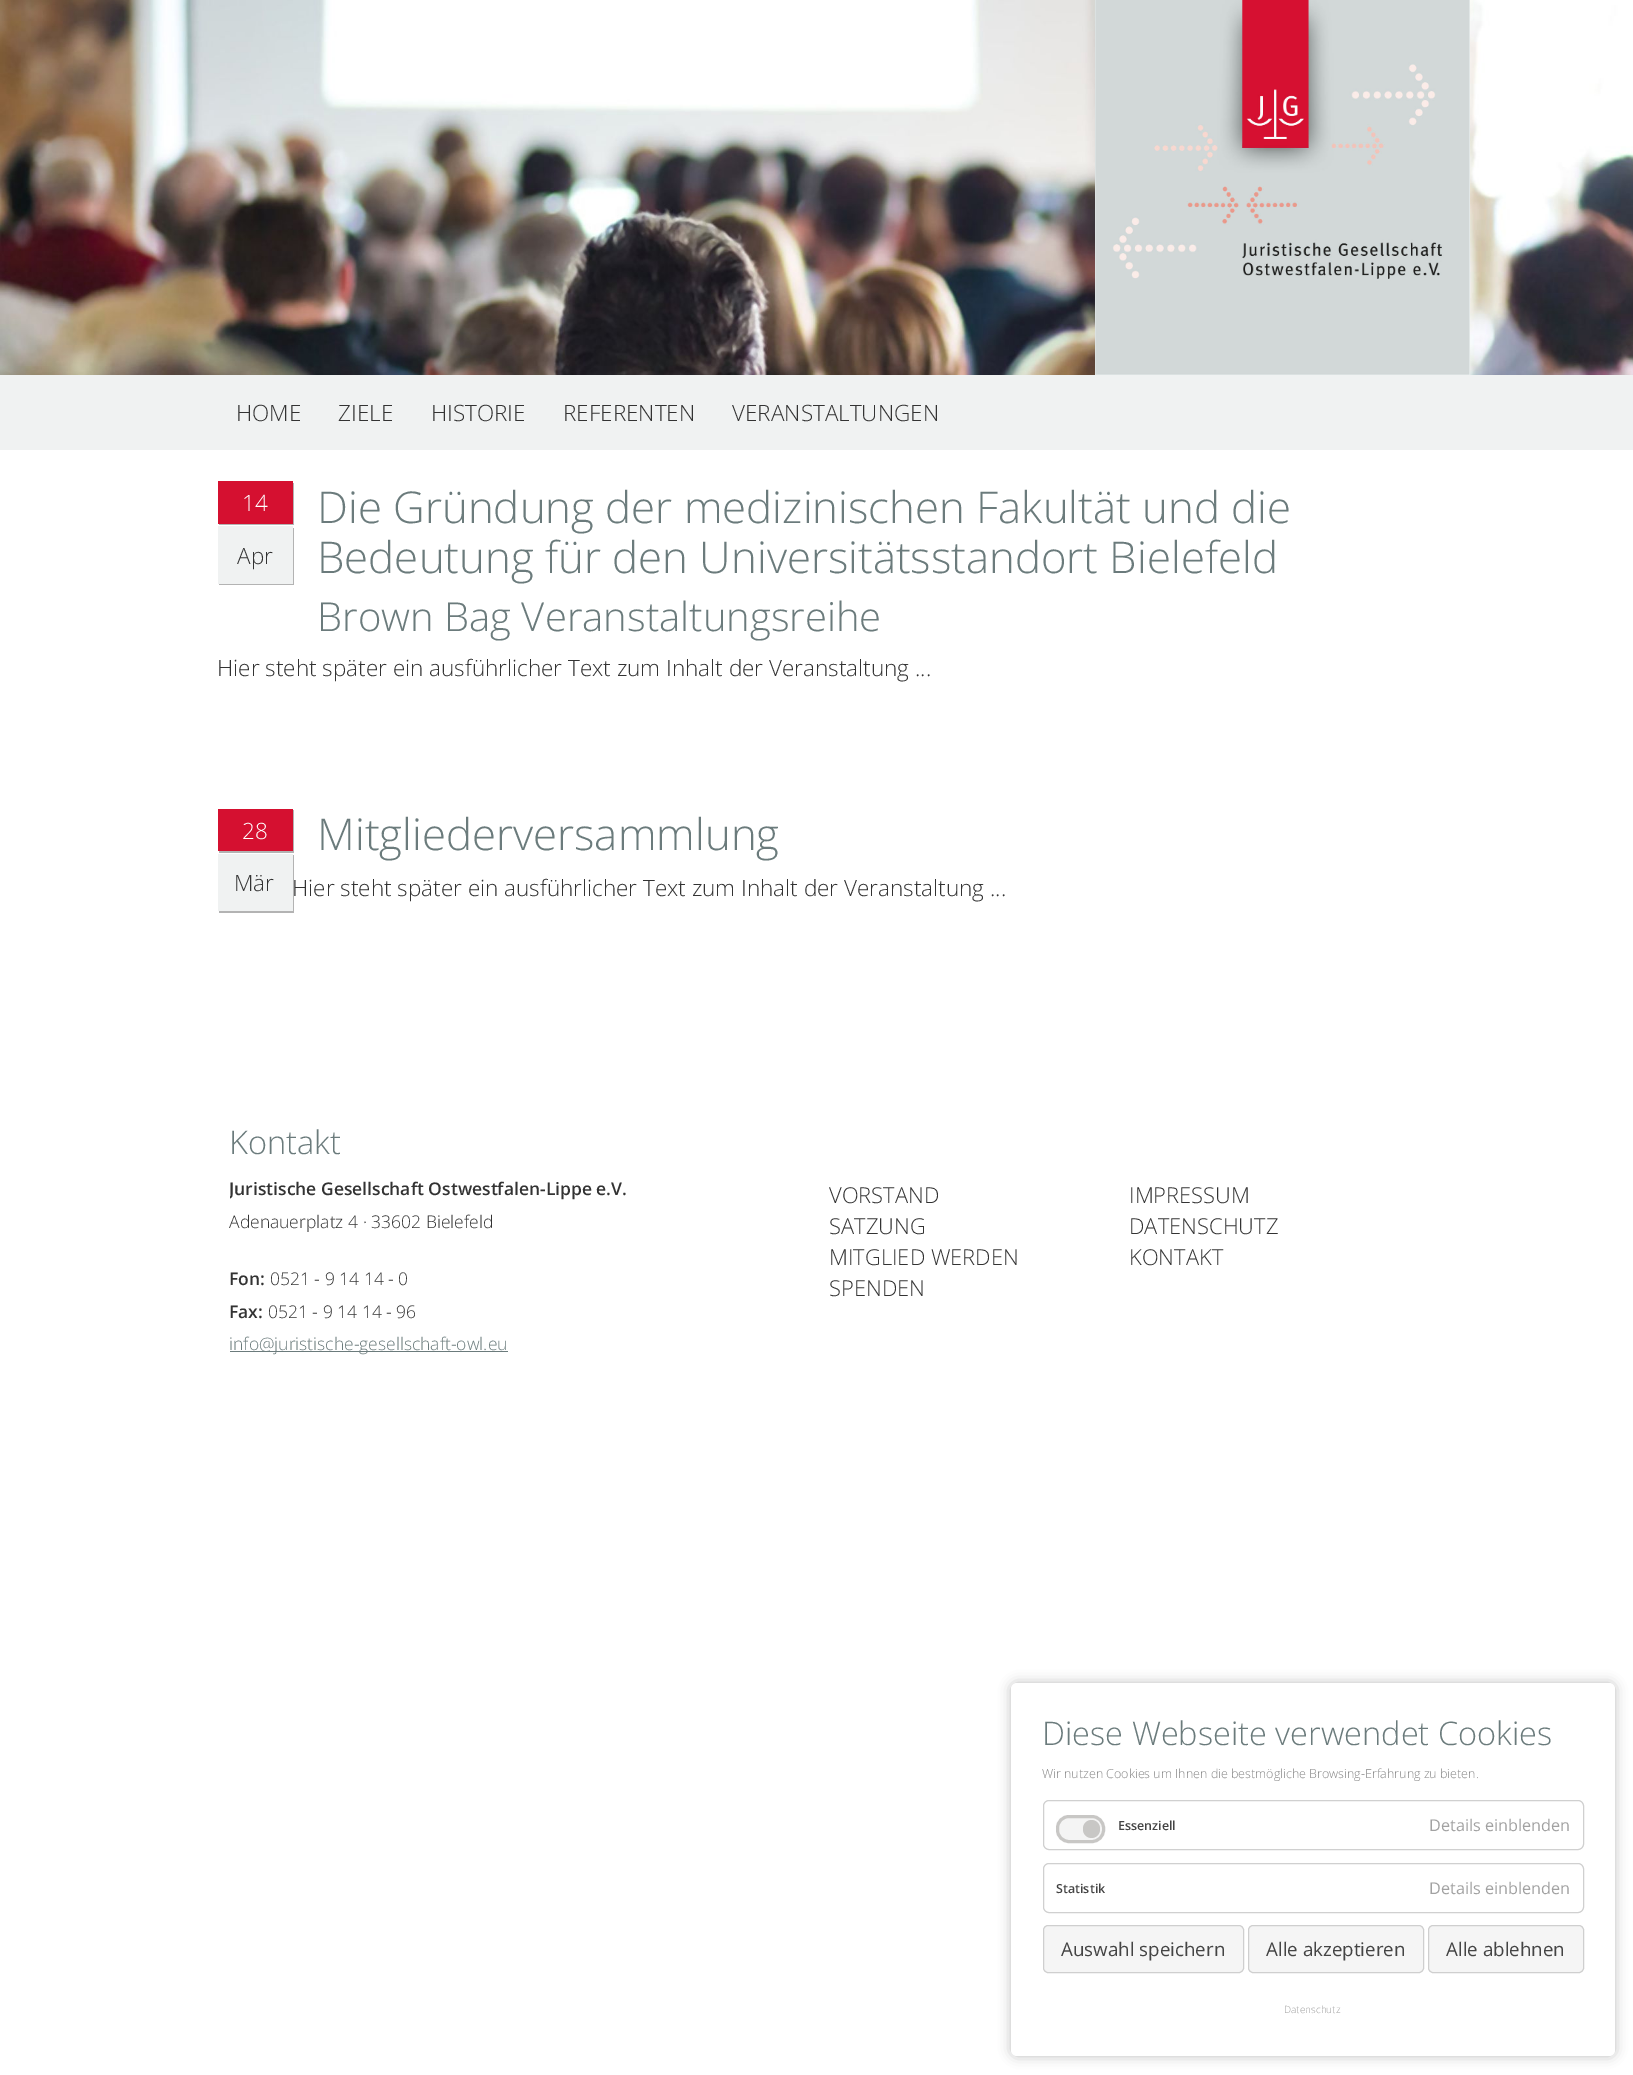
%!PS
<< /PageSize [1633 2075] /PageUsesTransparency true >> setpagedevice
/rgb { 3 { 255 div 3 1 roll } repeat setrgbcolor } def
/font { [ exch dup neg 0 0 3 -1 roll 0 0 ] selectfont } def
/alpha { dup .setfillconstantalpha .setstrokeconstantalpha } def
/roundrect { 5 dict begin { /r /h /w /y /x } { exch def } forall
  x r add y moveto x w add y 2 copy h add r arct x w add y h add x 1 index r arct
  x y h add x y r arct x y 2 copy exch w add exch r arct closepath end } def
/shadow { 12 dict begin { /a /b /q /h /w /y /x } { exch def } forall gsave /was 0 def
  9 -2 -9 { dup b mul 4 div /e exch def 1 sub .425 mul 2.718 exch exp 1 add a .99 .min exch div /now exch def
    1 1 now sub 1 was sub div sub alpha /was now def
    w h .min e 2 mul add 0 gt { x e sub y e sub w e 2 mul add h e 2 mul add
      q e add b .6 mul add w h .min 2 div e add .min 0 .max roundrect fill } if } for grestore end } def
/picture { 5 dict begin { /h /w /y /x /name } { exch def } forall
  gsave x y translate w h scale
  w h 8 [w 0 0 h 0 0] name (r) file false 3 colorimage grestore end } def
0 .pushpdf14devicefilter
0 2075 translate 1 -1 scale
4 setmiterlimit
255 255 255 rgb
0 0 1633 2075 rectfill
(img/1.rgb) 0 0 1633 375 picture
(img/2.rgb) 1095 0 375 375 picture
240 242 242 rgb
0 375 1633 75 rectfill
179 179 179 rgb
219 524 moveto 219 525 lineto 294 525 lineto 294 483 lineto 292 483 lineto 292 524 lineto closepath fill
213 16 48 rgb
218 481 75 43 rectfill
179 179 179 rgb
219 584 moveto 219 585 lineto 294 585 lineto 294 528 lineto 292 528 lineto 292 584 lineto closepath fill
240 242 242 rgb
218 526 75 58 rectfill
179 179 179 rgb
219 851 moveto 219 853 lineto 294 853 lineto 294 810 lineto 292 810 lineto 292 851 lineto closepath fill
213 16 48 rgb
218 809 75 42 rectfill
179 179 179 rgb
219 911 moveto 219 913 lineto 294 913 lineto 294 855 lineto 292 855 lineto 292 911 lineto closepath fill
240 242 242 rgb
218 854 75 57 rectfill
107 123 124 rgb
230 1351 278 1 rectfill
0 0 0 rgb
1011 1683 604 373 6 6 0.25 shadow
255 255 255 rgb
1011 1683 604 373 6 roundrect fill
208 208 208 rgb
1043.5 1800.5 540 49 5.5 roundrect stroke
244 244 244 rgb
1057.5 1816.5 46 25 11.5 roundrect gsave fill grestore
200 199 197 rgb
3 setlinewidth
stroke
1083 1820 17 18 8.5 roundrect fill
208 208 208 rgb
1 setlinewidth
1043.5 1863.5 540 49 5.5 roundrect stroke
245 245 245 rgb
1043.5 1925.5 200 47 4.5 roundrect gsave fill grestore
207 207 207 rgb
stroke
245 245 245 rgb
1248.5 1925.5 175 47 4.5 roundrect gsave fill grestore
207 207 207 rgb
stroke
245 245 245 rgb
1428.5 1925.5 155 47 4.5 roundrect gsave fill grestore
207 207 207 rgb
stroke
/OpenSans-Light 22.5 font
51 51 51 rgb
[
  [(HOME) 236 421]
  [(ZIELE) 338 421]
  [(HISTORIE) 431 421]
  [(REFERENTEN) 563 421]
  [(VERANSTALTUNGEN) 732 421]
] { aload pop moveto show } forall
255 255 255 rgb
242 511 moveto (14) show
51 51 51 rgb
237 564 moveto (Apr) show
/OpenSans-Light 43.75 font
107 123 124 rgb
317 523 moveto (Die Gründung der medizinischen Fakultät und die) show
317 573 moveto (Bedeutung für den Universitätsstandort Bielefeld) show
/OpenSans-Light 40 font
317 631 moveto (Brown Bag Veranstaltungsreihe) show
/OpenSans-Light 22.5 font
51 51 51 rgb
217 676 moveto (Hier steht später ein ausführlicher Text zum Inhalt der Veranstaltung ...) show
255 255 255 rgb
242 839 moveto (28) show
51 51 51 rgb
234 891 moveto (Mär) show
/OpenSans-Light 43.75 font
107 123 124 rgb
317 850 moveto (Mitgliederversammlung) show
/OpenSans-Light 22.5 font
51 51 51 rgb
292 896 moveto (Hier steht später ein ausführlicher Text zum Inhalt der Veranstaltung ...) show
/OpenSans-Light 32.5 font
107 123 124 rgb
229 1154 moveto (Kontakt) show
gsave
230 1123 575 262 rectclip
/OpenSans-SemiBold 17.5 font
51 51 51 rgb
229 1195 moveto (Juristische Gesellschaft Ostwestfalen-Lippe e.V.) show
grestore
/OpenSans-Light 17.5 font
51 51 51 rgb
229 1228 moveto (Adenauerplatz 4 · 33602 Bielefeld) show
/OpenSans-SemiBold 17.5 font
229 1285 moveto (Fon:) show
/OpenSans-Light 17.5 font
270 1285 moveto (0521 - 9 14 14 - 0) show
/OpenSans-SemiBold 17.5 font
229 1318 moveto (Fax:) show
/OpenSans-Light 17.5 font
268 1318 moveto (0521 - 9 14 14 - 96) show
107 123 124 rgb
229 1350 moveto (info@juristische-gesellschaft-owl.eu) show
/OpenSans-Light 21.9 font
51 51 51 rgb
[
  [(VORSTAND) 829 1203]
  [(SATZUNG) 829 1234]
  [(MITGLIED WERDEN) 829 1265]
  [(SPENDEN) 829 1296]
  [(IMPRESSUM) 1129 1203]
  [(DATENSCHUTZ) 1129 1234]
  [(KONTAKT) 1129 1265]
] { aload pop moveto show } forall
/OpenSans-Light 32.5 font
107 123 124 rgb
1042 1745 moveto (Diese Webseite verwendet Cookies) show
/OpenSans-Light 12.5 font
134 134 134 rgb
1042 1778 moveto (Wir nutzen Cookies um Ihnen die bestmögliche Browsing-Erfahrung zu bieten.) show
/OpenSans-SemiBold 12.5 font
68 68 68 rgb
1118 1830 moveto (Essenziell) show
/OpenSans-Regular 16.25 font
162 162 162 rgb
1429 1831 moveto (Details einblenden) show
/OpenSans-SemiBold 12.5 font
68 68 68 rgb
1056 1893 moveto (Statistik) show
/OpenSans-Regular 16.25 font
162 162 162 rgb
1429 1894 moveto (Details einblenden) show
/OpenSans-Regular 18.75 font
68 68 68 rgb
[
  [(Auswahl speichern) 1061 1956]
  [(Alle akzeptieren) 1266 1956]
  [(Alle ablehnen) 1446 1956]
] { aload pop moveto show } forall
/OpenSans-Light 10 font
162 162 162 rgb
1284 2013 moveto (Datenschutz) show
.poppdf14devicefilter showpage
